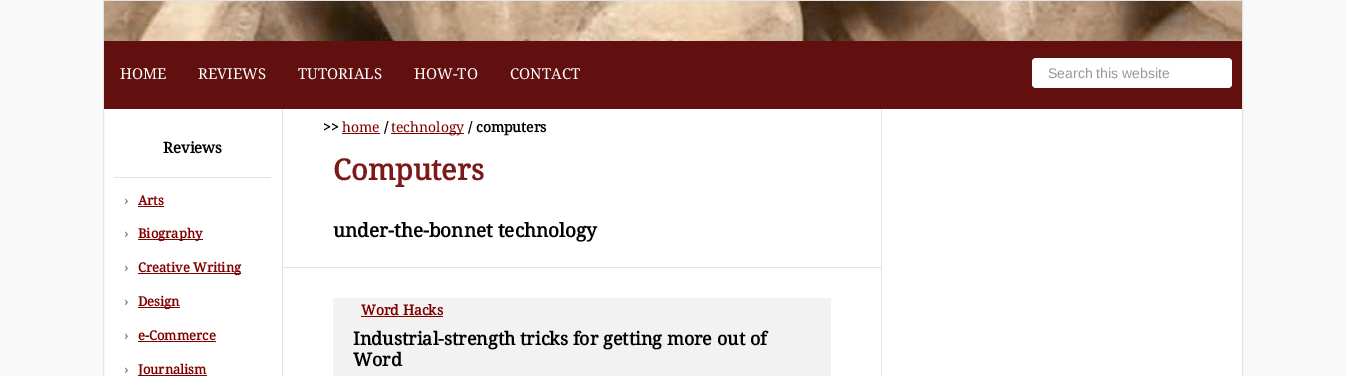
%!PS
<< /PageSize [1346 376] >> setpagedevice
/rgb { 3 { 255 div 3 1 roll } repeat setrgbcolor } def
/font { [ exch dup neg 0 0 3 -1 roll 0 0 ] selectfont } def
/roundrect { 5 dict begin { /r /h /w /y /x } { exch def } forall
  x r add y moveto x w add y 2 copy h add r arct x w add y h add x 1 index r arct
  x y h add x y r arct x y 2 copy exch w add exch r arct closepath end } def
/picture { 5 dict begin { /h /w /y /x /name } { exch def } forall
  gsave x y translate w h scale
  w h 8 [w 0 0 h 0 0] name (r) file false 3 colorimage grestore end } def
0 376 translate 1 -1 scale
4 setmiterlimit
249 249 249 rgb
0 0 1346 376 rectfill
255 255 255 rgb
104 109 1138 267 rectfill
227 227 227 rgb
103.5 0.5 1139 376 rectstroke
(img/1.rgb) 104 1 1138 40 picture
98 15 15 rgb
104 41 1138 68 rectfill
255 255 255 rgb
1032 58 200 30 4 roundrect fill
[
  [114 177 157 1 227 227 227]
  [138 206 26 1 128 0 0]
  [138 239 65 1 128 0 0]
  [138 273 103 1 128 0 0]
  [138 307 42 1 128 0 0]
  [138 341 78 1 128 0 0]
  [138 375 69 1 128 0 0]
  [881 109 1 267 227 227 227]
  [282 109 1 267 227 227 227]
  [342 133 38 1 128 0 0]
  [391 133 73 1 128 0 0]
  [283 267 598 1 227 227 227]
  [333 298 498 78 242 242 242]
  [361 316 82 1 128 0 0]
] { aload pop rgb rectfill } forall
/DroidSerif-Regular 15 font
255 255 255 rgb
[
  [(HOME) 120 79]
  [(REVIEWS) 198 79]
  [(TUTORIALS) 298 79]
  [(HOW-TO) 414 79]
  [(CONTACT) 510 79]
] { aload pop moveto show } forall
/LiberationSans-Regular 14 font
153 153 153 rgb
1048 78 moveto (Search this website) show
/DroidSerif-Bold 15 font
0 0 0 rgb
163 153 moveto (Reviews) show
/DroidSerif-Bold 13 font
136 136 136 rgb
124 205 moveto (›) show
128 0 0 rgb
138 205 moveto (Arts) show
136 136 136 rgb
124 238 moveto (›) show
128 0 0 rgb
138 238 moveto (Biography) show
136 136 136 rgb
124 272 moveto (›) show
128 0 0 rgb
138 272 moveto (Creative Writing) show
136 136 136 rgb
124 306 moveto (›) show
128 0 0 rgb
138 306 moveto (Design) show
136 136 136 rgb
124 340 moveto (›) show
128 0 0 rgb
138 340 moveto (e-Commerce) show
136 136 136 rgb
124 374 moveto (›) show
128 0 0 rgb
138 374 moveto (Journalism) show
/DroidSerif-Bold 14 font
0 0 0 rgb
323 132 moveto (>>) show
/DroidSerif-Regular 14 font
128 0 0 rgb
342 132 moveto (home) show
/DroidSerif-Bold 14 font
0 0 0 rgb
384 132 moveto (/) show
/DroidSerif-Regular 14 font
128 0 0 rgb
391 132 moveto (technology) show
/DroidSerif-Bold 14 font
0 0 0 rgb
468 132 moveto (/ computers) show
/DroidSerif-Bold 29 font
124 25 25 rgb
333 180 moveto (Computers) show
/DroidSerif-Bold 19 font
0 0 0 rgb
333 237 moveto (under-the-bonnet technology) show
/DroidSerif-Bold 14 font
128 0 0 rgb
361 315 moveto (Word Hacks) show
/DroidSerif-Bold 18 font
0 0 0 rgb
353 345 moveto (Industrial-strength tricks for getting more out of) show
353 366 moveto (Word) show
showpage
